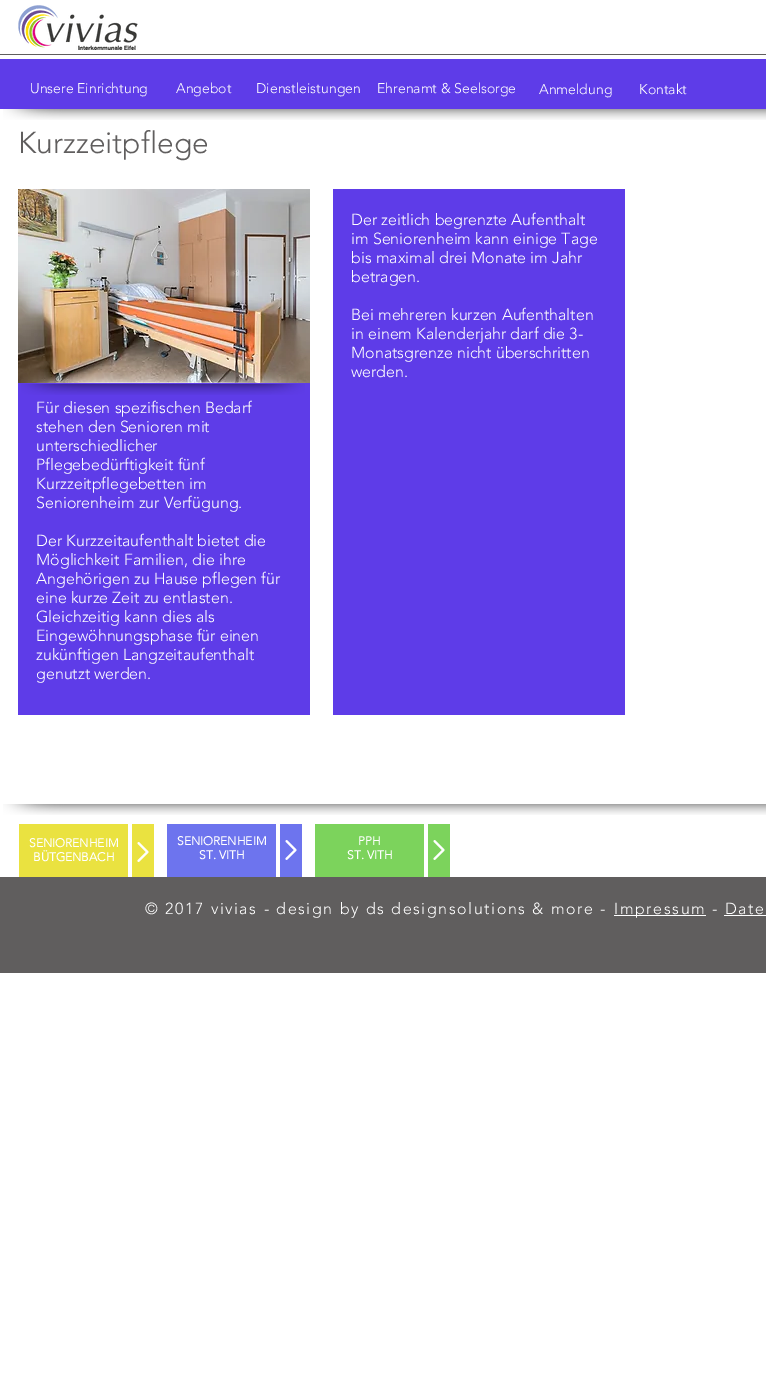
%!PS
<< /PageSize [766 1393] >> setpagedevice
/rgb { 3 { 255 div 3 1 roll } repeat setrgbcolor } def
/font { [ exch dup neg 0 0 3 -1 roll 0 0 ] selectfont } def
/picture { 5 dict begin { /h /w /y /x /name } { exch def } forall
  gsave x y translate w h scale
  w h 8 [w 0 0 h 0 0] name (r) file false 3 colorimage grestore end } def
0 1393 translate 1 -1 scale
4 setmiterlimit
255 255 255 rgb
0 0 766 1393 rectfill
(img/1.rgb) 18 5 120 45 picture
96 94 94 rgb
0 54 766 1 rectfill
94 60 232 rgb
0 59 766 50 rectfill
(img/2.rgb) 3 109 97 11 picture
(img/3.rgb) 100 109 666 11 picture
(img/4.rgb) 18 189 292 194 picture
333 189 292 526 rectfill
18 383 292 332 rectfill
(img/5.rgb) 21 372 97 23 picture
(img/6.rgb) 118 372 90 23 picture
(img/7.rgb) 208 372 97 23 picture
(img/2.rgb) 3 804 97 11 picture
(img/3.rgb) 100 804 666 11 picture
[
  [19 824 109 53 234 226 64]
  [132 824 22 53 234 226 64]
  [167 824 109 53 109 116 238]
  [280 824 22 53 109 116 238]
  [315 824 109 53 124 211 92]
  [428 824 22 53 124 211 92]
] { aload pop rgb rectfill } forall
(img/8.rgb) 137 842 12 20 picture
(img/9.rgb) 285 840 12 20 picture
(img/10.rgb) 433 840 12 20 picture
[
  [0 877 766 96 96 94 94]
  [614 915 92 1 255 255 255]
  [724 915 42 1 255 255 255]
] { aload pop rgb rectfill } forall
/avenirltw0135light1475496-Light 14 font
[
  [(Unsere Einrichtung) 30 93]
  [(Angebot) 176 93]
  [(Dienstleistungen) 256 93]
  [(Ehrenamt & Seelsorge) 377 93]
  [(Anmeldung) 539 94]
  [(Kontakt) 639 94]
] { aload pop moveto show } forall
/avenirltw0135light1475496-Light 30 font
96 94 94 rgb
18 153 moveto (Kurzzeitpflege) show
/avenirltw0135light1475496-Light 16 font
255 255 255 rgb
[
  [(Der zeitlich begrenzte Aufenthalt) 351 225]
  [(im Seniorenheim kann einige Tage) 351 244]
  [(bis maximal drei Monate im Jahr) 351 263]
  [(betragen.) 351 282]
  [(Bei mehreren kurzen Aufenthalten) 351 320]
  [(in einem Kalenderjahr darf die 3-) 351 339]
  [(Monatsgrenze nicht überschritten) 351 358]
  [(werden.) 351 377]
  [(Für diesen spezifischen Bedarf) 36 413]
  [(stehen den Senioren mit) 36 432]
  [(unterschiedlicher) 36 451]
  [(Pflegebedürftigkeit fünf) 36 470]
  [(Kurzzeitpflegebetten im) 36 489]
  [(Seniorenheim zur Verfügung.) 36 508]
  [(Der Kurzzeitaufenthalt bietet die) 36 546]
  [(Möglichkeit Familien, die ihre) 36 565]
  [(Angehörigen zu Hause pflegen für) 36 584]
  [(eine kurze Zeit zu entlasten.) 36 603]
  [(Gleichzeitig kann dies als) 36 622]
  [(Eingewöhnungsphase für einen) 36 641]
  [(zukünftigen Langzeitaufenthalt) 36 660]
  [(genutzt werden.) 36 679]
] { aload pop moveto show } forall
/avenirltw0135light1475496-Bold 12 font
[
  [(SENIORENHEIM) 29 847]
  [(BÜTGENBACH) 33 861]
  [(SENIORENHEIM) 177 845]
  [(ST. VITH) 199 859]
  [(PPH) 358 845]
  [(ST. VITH) 347 859]
] { aload pop moveto show } forall
/avenirltw0135light1475496-Light 16 font
145 914 moveto 1.6 0 (© 2017 vivias - design by ds designsolutions & more -) ashow
614 914 moveto 1.6 0 (Impressum - Date) ashow
showpage
